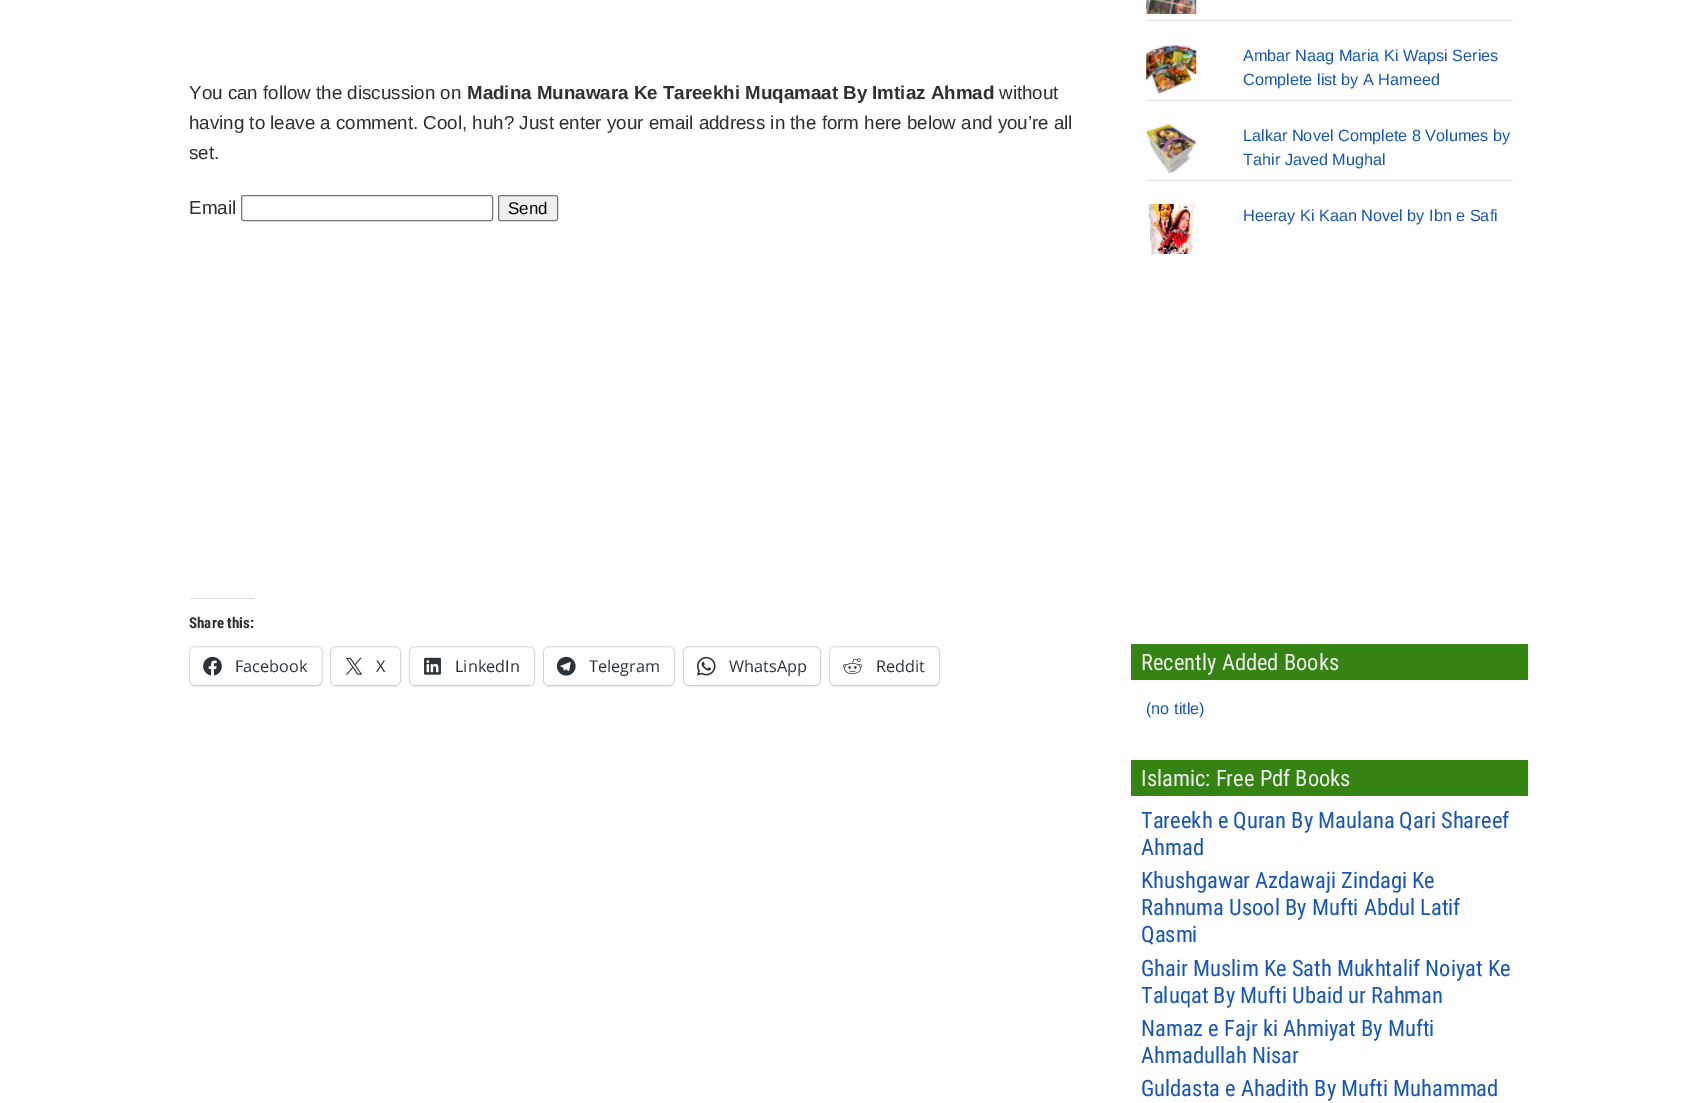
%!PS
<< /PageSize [1703 1103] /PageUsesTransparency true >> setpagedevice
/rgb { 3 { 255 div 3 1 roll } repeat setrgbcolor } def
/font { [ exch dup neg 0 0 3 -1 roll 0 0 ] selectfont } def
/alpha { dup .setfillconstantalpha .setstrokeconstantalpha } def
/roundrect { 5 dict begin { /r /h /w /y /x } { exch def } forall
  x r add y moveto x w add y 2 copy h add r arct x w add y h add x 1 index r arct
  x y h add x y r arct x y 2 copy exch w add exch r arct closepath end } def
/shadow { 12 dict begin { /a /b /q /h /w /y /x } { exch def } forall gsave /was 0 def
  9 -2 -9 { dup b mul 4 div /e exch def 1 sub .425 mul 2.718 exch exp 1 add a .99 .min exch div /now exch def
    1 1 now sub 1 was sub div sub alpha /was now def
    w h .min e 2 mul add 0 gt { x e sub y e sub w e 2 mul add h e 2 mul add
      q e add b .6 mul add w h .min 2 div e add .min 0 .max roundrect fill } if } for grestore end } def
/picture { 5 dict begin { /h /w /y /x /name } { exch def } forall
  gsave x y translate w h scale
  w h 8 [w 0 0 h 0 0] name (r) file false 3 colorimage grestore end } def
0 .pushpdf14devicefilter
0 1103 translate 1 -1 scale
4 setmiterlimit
255 255 255 rgb
0 0 1703 1103 rectfill
118 118 118 rgb
241.5 195.5 251 25 2 roundrect stroke
239 239 239 rgb
498.5 195.5 59 25 2 roundrect gsave fill grestore
118 118 118 rgb
stroke
220 220 222 rgb
190 598 64 1 rectfill
224 224 224 rgb
189.5 646.5 133 39 5.5 roundrect stroke
0 0 0 rgb
190 649 131 37 5 1 0.12 shadow
255 255 255 rgb
190 648 131 37 5 roundrect fill
(img/1.rgb) 203 656 19 20 picture
224 224 224 rgb
330.5 646.5 70 39 5.5 roundrect stroke
0 0 0 rgb
331 649 69 37 5 1 0.12 shadow
255 255 255 rgb
331 648 69 37 5 roundrect fill
(img/2.rgb) 345 657 18 18 picture
224 224 224 rgb
409.5 646.5 125 39 5.5 roundrect stroke
0 0 0 rgb
410 649 124 37 5 1 0.12 shadow
255 255 255 rgb
410 648 124 37 5 roundrect fill
(img/3.rgb) 424 657 17 18 picture
224 224 224 rgb
543.5 646.5 131 39 5.5 roundrect stroke
0 0 0 rgb
544 649 130 37 5 1 0.12 shadow
255 255 255 rgb
544 648 130 37 5 roundrect fill
(img/4.rgb) 556 656 20 20 picture
224 224 224 rgb
683.5 646.5 137 39 5.5 roundrect stroke
0 0 0 rgb
684 649 136 37 5 1 0.12 shadow
255 255 255 rgb
684 648 136 37 5 roundrect fill
(img/5.rgb) 697 656 19 20 picture
224 224 224 rgb
829.5 646.5 110 39 5.5 roundrect stroke
0 0 0 rgb
830 649 109 37 5 1 0.12 shadow
255 255 255 rgb
830 648 109 37 5 roundrect fill
(img/6.rgb) 843 658 19 17 picture
224 224 224 rgb
1146 20 367 1 rectfill
(img/7.rgb) 1146 0 51 14 picture
1146 100 367 1 rectfill
(img/8.rgb) 1146 45 51 49 picture
1146 180 367 1 rectfill
(img/9.rgb) 1146 124 51 50 picture
(img/10.rgb) 1148 204 48 50 picture
53 132 19 rgb
1131 644 397 36 rectfill
1131 760 397 36 rectfill
/Arimo-Regular 18.75 font
48 48 48 rgb
189 99 moveto (You can follow the discussion on) show
/Arimo-Bold 18.75 font
467 99 moveto (Madina Munawara Ke Tareekhi Muqamaat By Imtiaz Ahmad) show
/Arimo-Regular 18.75 font
[
  [(without) 999 99]
  [(having to leave a comment. Cool, huh? Just enter your email address in the form here below and you’re all) 189 129]
  [(set.) 189 159]
  [(Email) 189 214]
] { aload pop moveto show } forall
/LiberationSans-Regular 17 font
0 0 0 rgb
508 214 moveto (Send) show
/RobotoCondensed-Bold 15 font
48 48 48 rgb
189 628 moveto (Share this:) show
/OpenSans-Regular 16.25 font
44 51 56 rgb
[
  [(Facebook) 235 672]
  [(X) 376 672]
  [(LinkedIn) 455 672]
  [(Telegram) 589 672]
  [(WhatsApp) 729 672]
  [(Reddit) 876 672]
] { aload pop moveto show } forall
/LiberationSans-Regular 16.25 font
24 86 186 rgb
[
  [(Ambar Naag Maria Ki Wapsi Series) 1243 61]
  [(Complete list by A Hameed) 1243 85]
  [(Lalkar Novel Complete 8 Volumes by) 1243 141]
  [(Tahir Javed Mughal) 1243 165]
  [(Heeray Ki Kaan Novel by Ibn e Safi) 1243 221]
] { aload pop moveto show } forall
/RobotoCondensed-Regular 22.5 font
238 238 238 rgb
1141 670 moveto (Recently Added Books) show
/LiberationSans-Regular 16.25 font
24 86 186 rgb
1146 714 moveto (\(no title\)) show
/RobotoCondensed-Regular 22.5 font
238 238 238 rgb
1141 786 moveto (Islamic: Free Pdf Books) show
24 86 186 rgb
[
  [(Tareekh e Quran By Maulana Qari Shareef) 1141 828]
  [(Ahmad) 1141 855]
  [(Khushgawar Azdawaji Zindagi Ke) 1141 888]
  [(Rahnuma Usool By Mufti Abdul Latif) 1141 915]
  [(Qasmi) 1141 942]
  [(Ghair Muslim Ke Sath Mukhtalif Noiyat Ke) 1141 976]
  [(Taluqat By Mufti Ubaid ur Rahman) 1141 1003]
  [(Namaz e Fajr ki Ahmiyat By Mufti) 1141 1036]
  [(Ahmadullah Nisar) 1141 1063]
  [(Guldasta e Ahadith By Mufti Muhammad) 1141 1096]
] { aload pop moveto show } forall
.poppdf14devicefilter showpage
